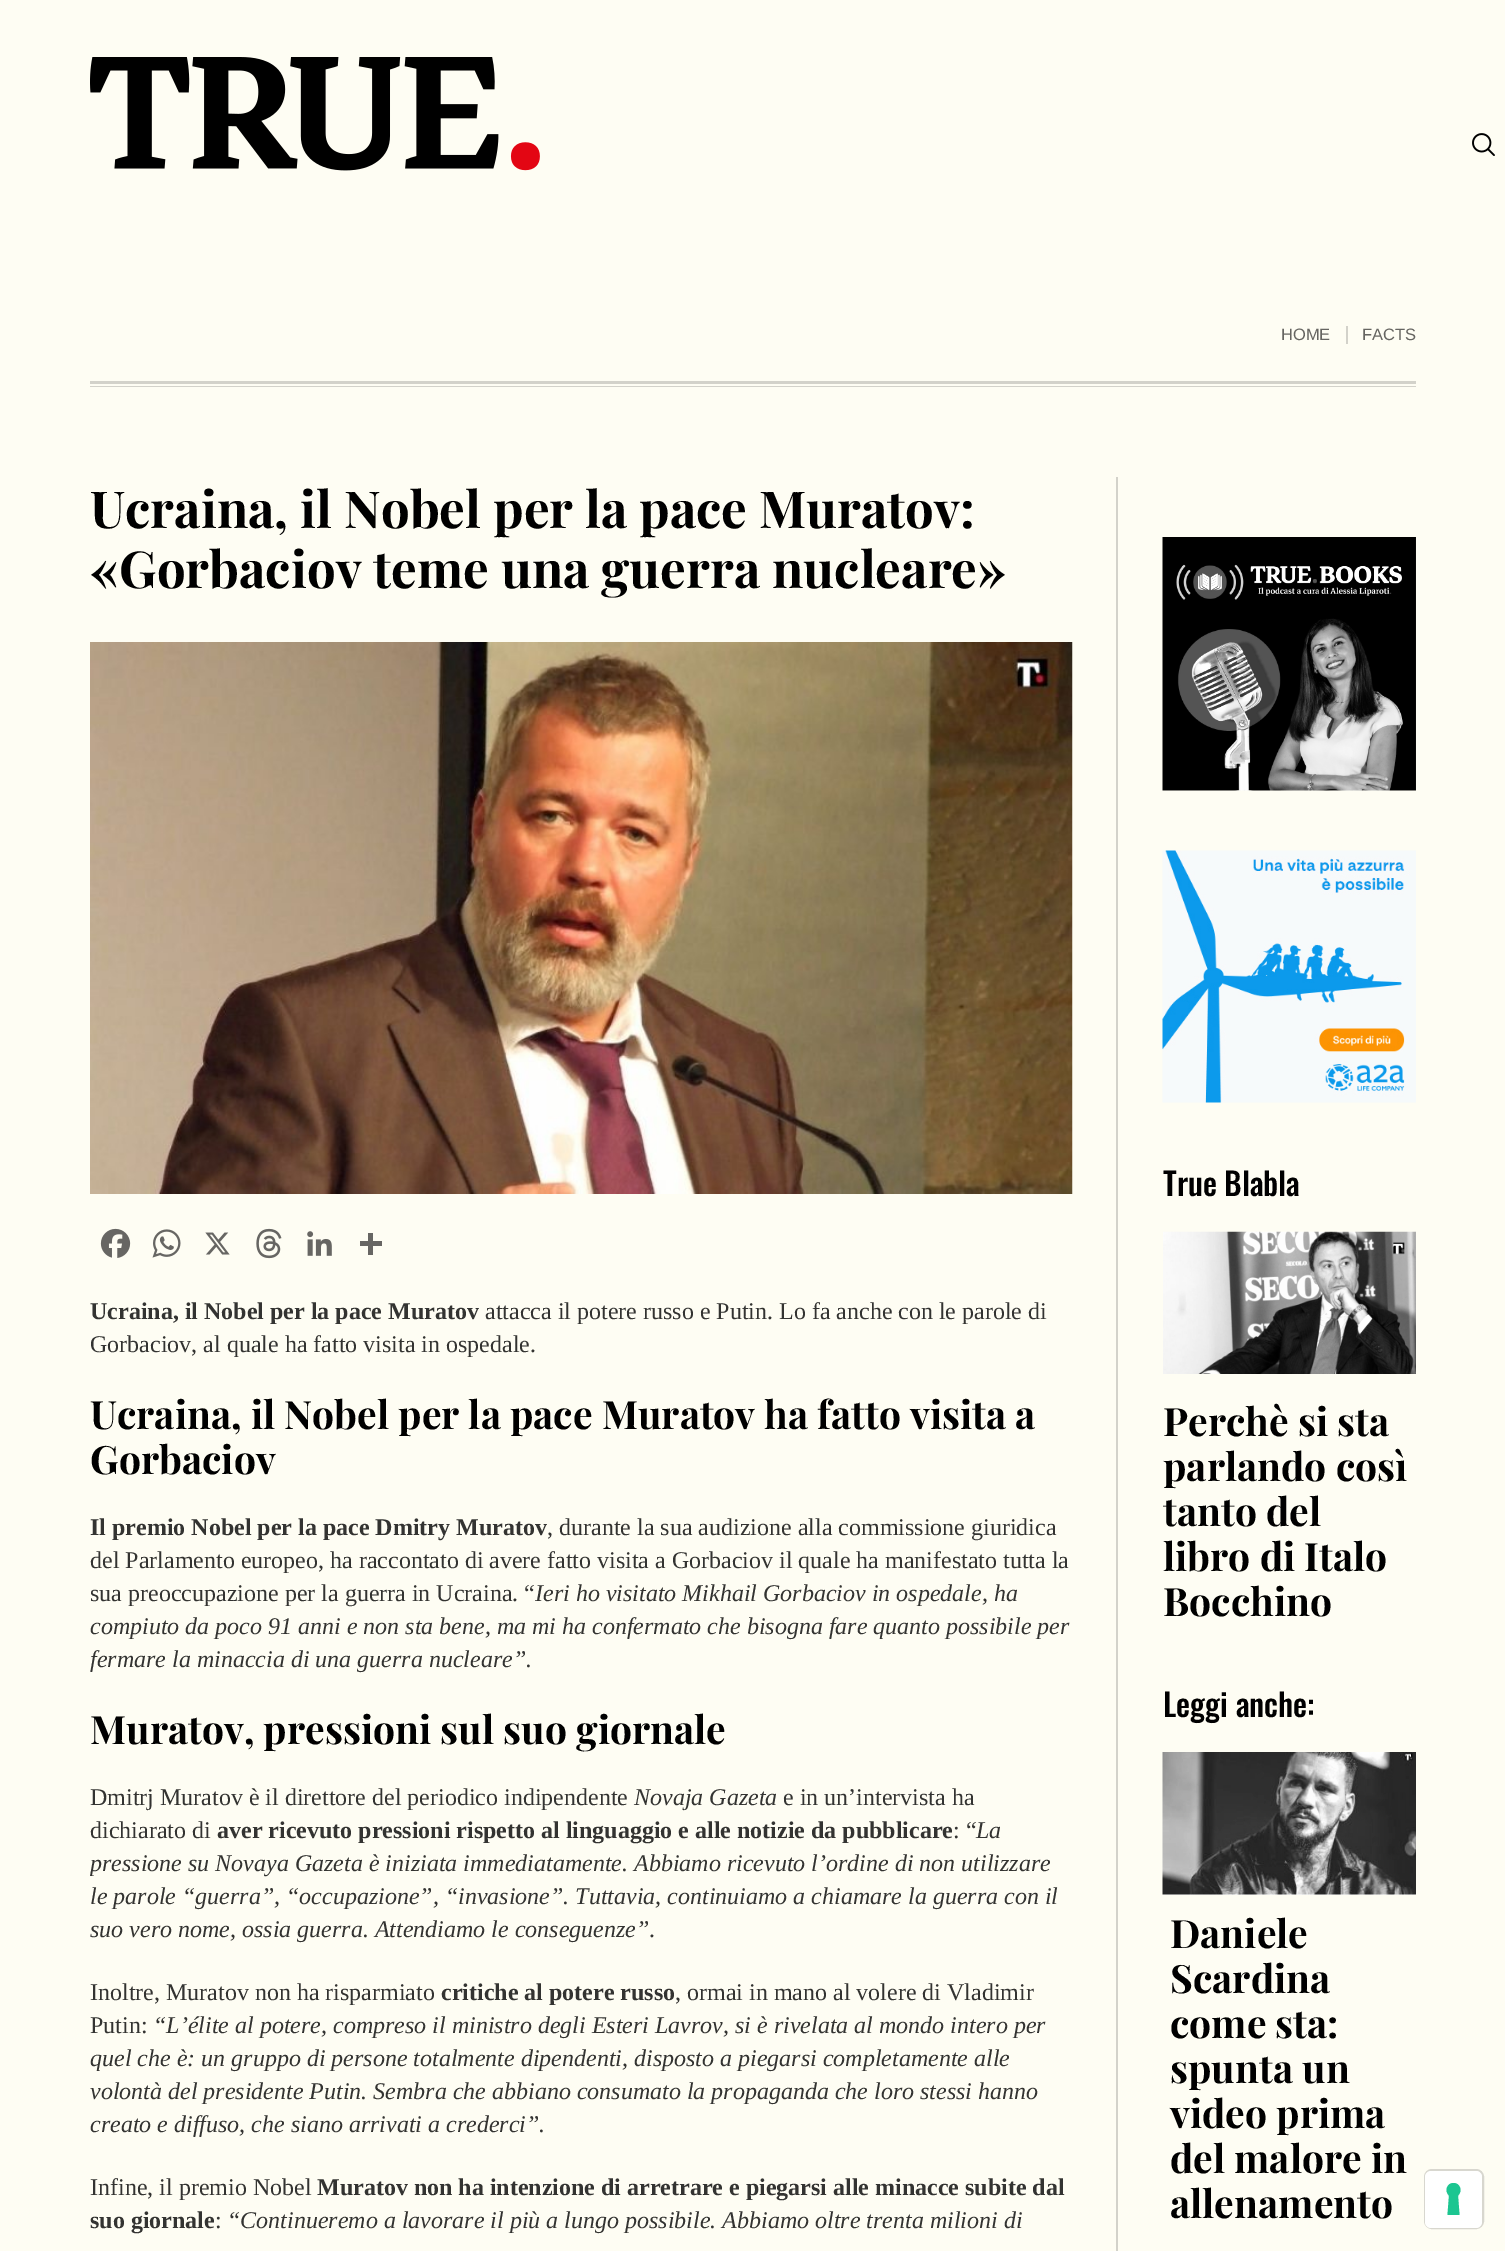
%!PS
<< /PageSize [1505 2251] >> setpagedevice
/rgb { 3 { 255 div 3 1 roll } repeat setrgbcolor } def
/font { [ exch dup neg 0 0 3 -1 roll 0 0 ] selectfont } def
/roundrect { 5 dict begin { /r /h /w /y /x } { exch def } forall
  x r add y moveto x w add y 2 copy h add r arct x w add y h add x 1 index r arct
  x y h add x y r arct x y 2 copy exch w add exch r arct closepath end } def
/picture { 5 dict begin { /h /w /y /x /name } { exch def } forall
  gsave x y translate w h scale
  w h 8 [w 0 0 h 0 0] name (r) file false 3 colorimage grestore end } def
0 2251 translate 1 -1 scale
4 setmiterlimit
254 253 243 rgb
0 0 1505 2251 rectfill
(img/1.rgb) 90 57 450 114 picture
(img/2.rgb) 1472 133 23 23 picture
[
  [90 381 1326 3 211 210 202]
  [90 386 1326 1 211 210 202]
  [1346 326 2 18 211 210 202]
] { aload pop rgb rectfill } forall
(img/3.rgb) 90 642 983 552 picture
(img/4.rgb) 100 1228 31 30 picture
(img/5.rgb) 152 1229 29 29 picture
(img/6.rgb) 205 1232 25 23 picture
(img/7.rgb) 256 1228 26 31 picture
(img/8.rgb) 307 1231 25 25 picture
[
  [368 1233 5 22 103 102 99]
  [360 1241 22 5 103 102 99]
  [1116 477 2 1774 211 210 202]
] { aload pop rgb rectfill } forall
(img/9.rgb) 1162 537 254 254 picture
(img/10.rgb) 1162 850 254 253 picture
(img/11.rgb) 1163 1231 253 143 picture
255 255 255 rgb
1163 1894 253 1 rectfill
(img/12.rgb) 1162 1752 254 143 picture
216 215 207 rgb
2 setlinewidth
1425 2170 58 58 7 roundrect stroke
255 255 255 rgb
1425 2171 57 57 6 roundrect fill
28 198 145 rgb
1453.5 2183 moveto 1460 2183 1463 2191 1458 2195.5 curveto 1459.5 2215 lineto 1447.5 2215 lineto 1449 2195.5 lineto 1444 2191 1447 2183 1453.5 2183 curveto closepath eofill
/LiberationSans-Regular 16.5 font
102 101 97 rgb
1281 340 moveto (HOME) show
1362 340 moveto (FACTS) show
/PlayfairDisplay-Bold 51 font
0 0 0 rgb
90 528 moveto (Ucraina, il Nobel per la pace Muratov:) show
90 588 moveto («Gorbaciov teme una guerra nucleare») show
/LiberationSerif-Bold 24 font
51 51 49 rgb
90 1319 moveto (Ucraina, il Nobel per la pace Muratov) show
/LiberationSerif-Regular 24 font
485 1319 moveto (attacca il potere russo e Putin. Lo fa anche con le parole di) show
90 1352 moveto (Gorbaciov, al quale ha fatto visita in ospedale.) show
/PlayfairDisplay-Bold 39 font
0 0 0 rgb
90 1429 moveto (Ucraina, il Nobel per la pace Muratov ha fatto visita a) show
90 1474 moveto (Gorbaciov) show
/LiberationSerif-Bold 24 font
51 51 49 rgb
90 1535 moveto (Il premio Nobel per la pace Dmitry Muratov) show
/LiberationSerif-Regular 24 font
[
  [(, durante la sua audizione alla commissione giuridica) 547 1535]
  [(del Parlamento europeo, ha raccontato di avere fatto visita a Gorbaciov il quale ha manifestato tutta la) 90 1568]
  [(sua preoccupazione per la guerra in Ucraina. “) 90 1601]
] { aload pop moveto show } forall
/LiberationSerif-Italic 24 font
[
  [(Ieri ho visitato Mikhail Gorbaciov in ospedale, ha) 535 1601]
  [(compiuto da poco 91 anni e non sta bene, ma mi ha confermato che bisogna fare quanto possibile per) 90 1634]
  [(fermare la minaccia di una guerra nucleare”.) 90 1667]
] { aload pop moveto show } forall
/PlayfairDisplay-Bold 39 font
0 0 0 rgb
90 1744 moveto (Muratov, pressioni sul suo giornale) show
/LiberationSerif-Regular 24 font
51 51 49 rgb
90 1805 moveto (Dmitrj Muratov è il direttore del periodico indipendente) show
/LiberationSerif-Italic 24 font
634 1805 moveto (Novaja Gazeta) show
/LiberationSerif-Regular 24 font
783 1805 moveto (e in un’intervista ha) show
90 1838 moveto (dichiarato di) show
/LiberationSerif-Bold 24 font
217 1838 moveto (aver ricevuto pressioni rispetto al linguaggio e alle notizie da pubblicare) show
/LiberationSerif-Regular 24 font
953 1838 moveto (: “) show
/LiberationSerif-Italic 24 font
976 1838 moveto (La) show
gsave
90 1224 983 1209 rectclip
90 1871 moveto (pressione su Novaya Gazeta è iniziata immediatamente. Abbiamo ricevuto l’ordine di non utilizzare) show
grestore
90 1904 moveto (le parole “guerra”, “occupazione”, “invasione”. Tuttavia, continuiamo a chiamare la guerra con il) show
90 1937 moveto (suo vero nome, ossia guerra. Attendiamo le conseguenze”) show
/LiberationSerif-Regular 24 font
649 1937 moveto (.) show
90 2000 moveto (Inoltre, Muratov non ha risparmiato) show
/LiberationSerif-Bold 24 font
441 2000 moveto (critiche al potere russo) show
/LiberationSerif-Regular 24 font
675 2000 moveto (, ormai in mano al volere di Vladimir) show
90 2033 moveto (Putin:) show
/LiberationSerif-Italic 24 font
[
  [(“L’élite al potere, compreso il ministro degli Esteri Lavrov, si è rivelata al mondo intero per) 153 2033]
  [(quel che è: un gruppo di persone totalmente dipendenti, disposto a piegarsi completamente alle) 90 2066]
  [(volontà del presidente Putin. Sembra che abbiano consumato la propaganda che loro stessi hanno) 90 2099]
  [(creato e diffuso, che siano arrivati a crederci”.) 90 2132]
] { aload pop moveto show } forall
/LiberationSerif-Regular 24 font
90 2195 moveto (Infine, il premio Nobel) show
/LiberationSerif-Bold 24 font
317 2195 moveto (Muratov non ha intenzione di arretrare e piegarsi alle minacce subite dal) show
90 2228 moveto (suo giornale) show
/LiberationSerif-Regular 24 font
215 2228 moveto (:) show
/LiberationSerif-Italic 24 font
227 2228 moveto (“Continueremo a lavorare il più a lungo possibile. Abbiamo oltre trenta milioni di) show
/Oswald-Medium 31.5 font
0 0 0 rgb
1163 1196 moveto (True Blabla) show
/PlayfairDisplay-Bold 39 font
[
  [(Perchè si sta) 1163 1436]
  [(parlando così) 1163 1481]
  [(tanto del) 1163 1526]
  [(libro di Italo) 1163 1571]
  [(Bocchino) 1163 1616]
] { aload pop moveto show } forall
/Oswald-Medium 31.5 font
1163 1717 moveto (Leggi anche:) show
/PlayfairDisplay-Bold 39 font
[
  [(Daniele) 1170 1948]
  [(Scardina) 1170 1993]
  [(come sta:) 1170 2038]
  [(spunta un) 1170 2083]
  [(video prima) 1170 2128]
  [(del malore in) 1170 2173]
  [(allenamento) 1170 2218]
] { aload pop moveto show } forall
showpage
